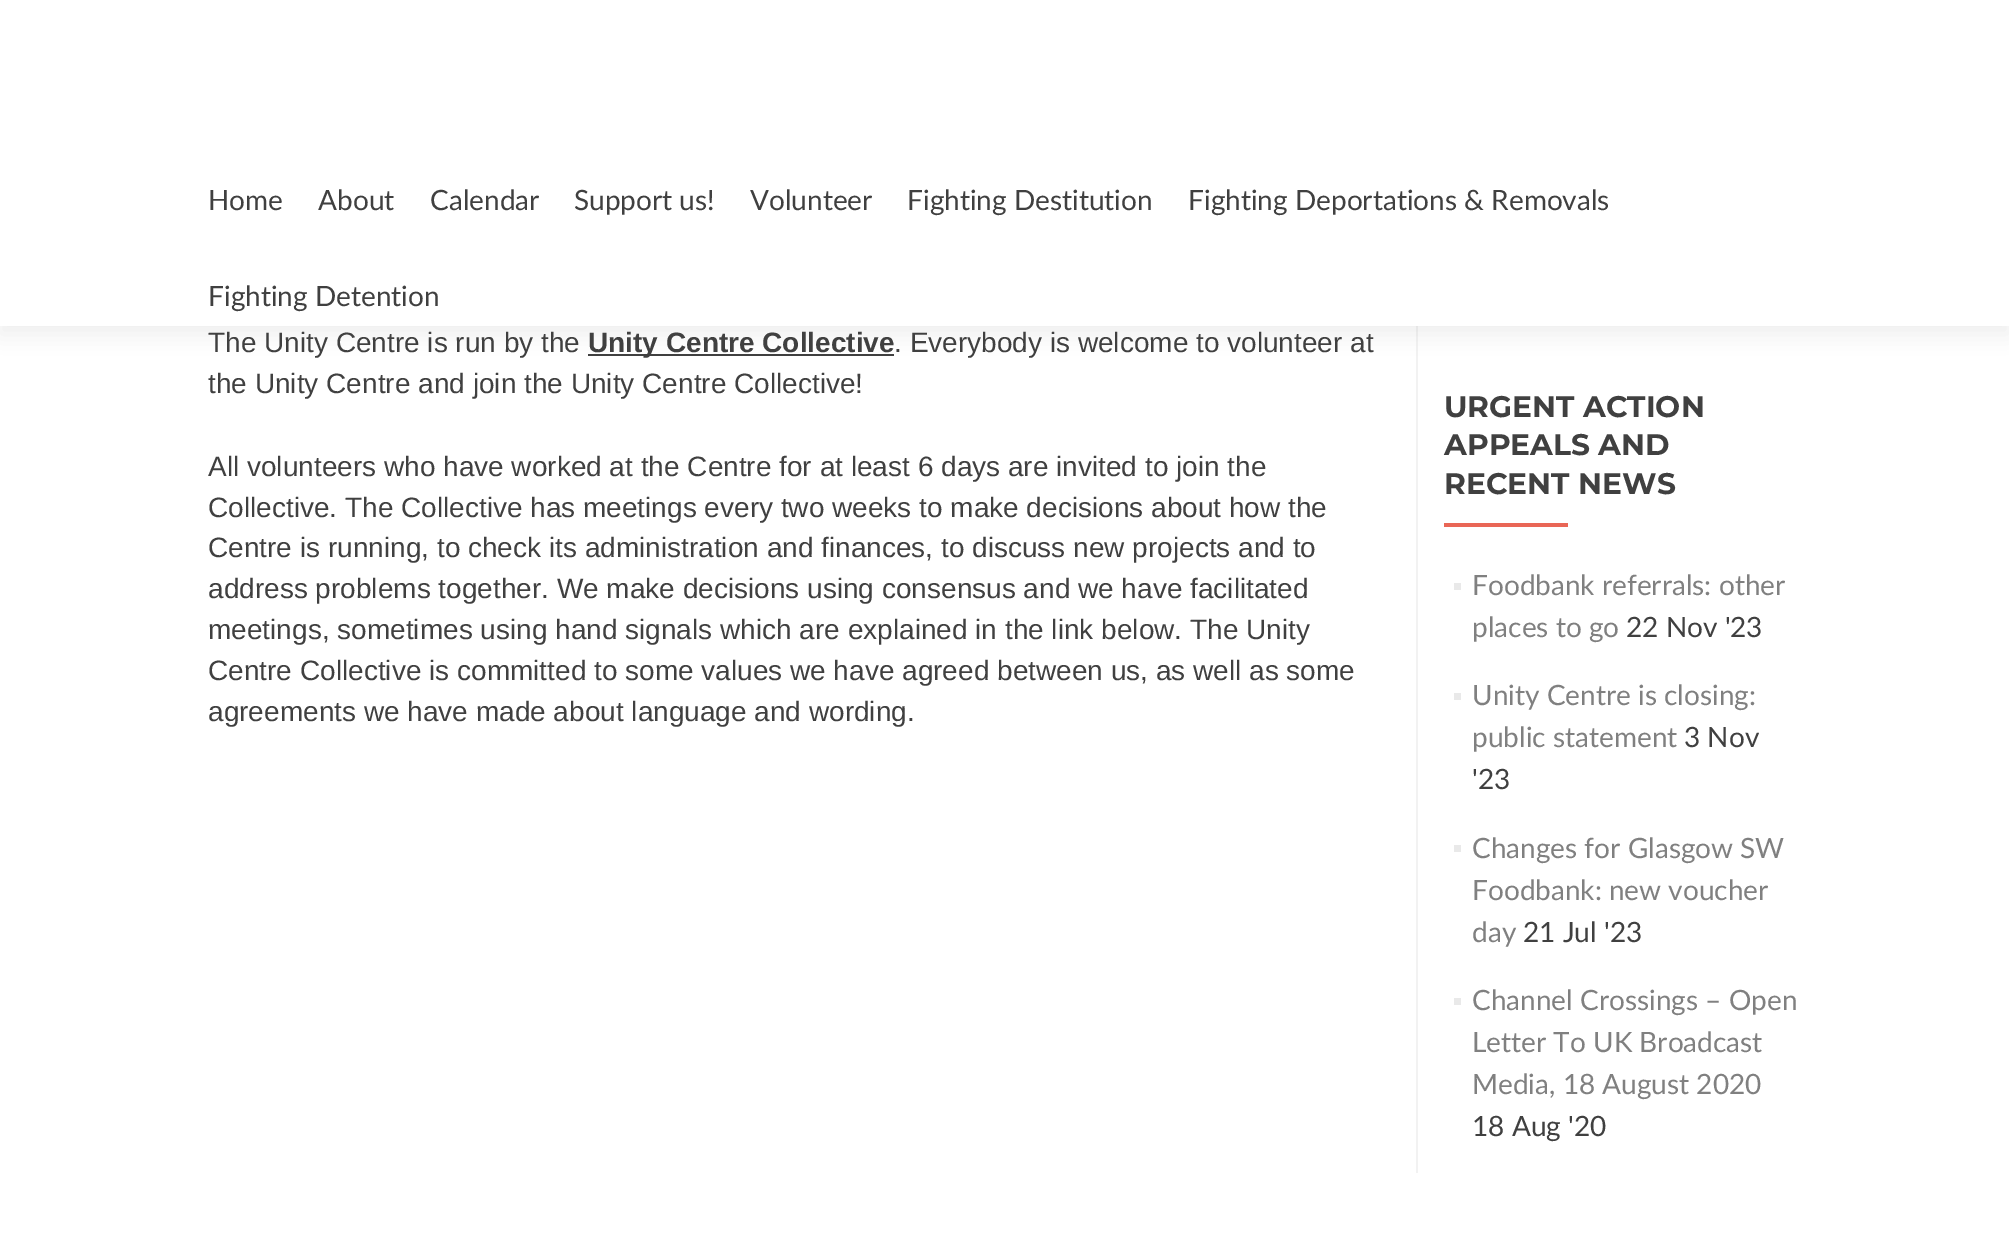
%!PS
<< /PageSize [2009 1239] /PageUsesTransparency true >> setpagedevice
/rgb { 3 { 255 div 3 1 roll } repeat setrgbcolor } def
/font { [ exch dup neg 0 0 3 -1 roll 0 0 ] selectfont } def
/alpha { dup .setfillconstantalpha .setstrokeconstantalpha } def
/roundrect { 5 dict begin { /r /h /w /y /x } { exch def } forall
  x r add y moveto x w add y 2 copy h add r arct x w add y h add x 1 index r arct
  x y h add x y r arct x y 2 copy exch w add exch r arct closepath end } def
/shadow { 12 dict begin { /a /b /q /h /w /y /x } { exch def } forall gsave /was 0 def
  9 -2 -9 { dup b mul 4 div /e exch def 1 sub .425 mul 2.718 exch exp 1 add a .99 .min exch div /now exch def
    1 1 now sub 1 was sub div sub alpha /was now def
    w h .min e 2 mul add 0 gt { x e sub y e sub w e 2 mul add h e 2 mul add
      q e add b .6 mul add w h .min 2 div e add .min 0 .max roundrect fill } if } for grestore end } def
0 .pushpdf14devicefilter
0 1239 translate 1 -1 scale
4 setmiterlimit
255 255 255 rgb
0 0 2009 1239 rectfill
64 64 64 rgb
588 354 306 2 rectfill
242 242 242 rgb
1416 326 2 847 rectfill
50 50 50 rgb
0 9 2009 325 0 9.5 0.08 shadow
[
  [0 0 2009 326 255 255 255]
  [1444 523 124 4 233 102 86]
  [1454 583 7 7 233 233 233]
  [1454 693 7 7 233 233 233]
  [1454 845 7 7 233 233 233]
  [1454 998 7 7 233 233 233]
] { aload pop rgb rectfill } forall
/Lato-Regular 28 font
64 64 64 rgb
[
  [(Home) 208 210]
  [(About) 318 210]
  [(Calendar) 430 210]
  [(Support us!) 574 210]
  [(Volunteer) 750 210]
  [(Fighting Destitution) 907 210]
  [(Fighting Deportations & Removals) 1188 210]
  [(Fighting Detention) 208 306]
] { aload pop moveto show } forall
/LiberationSans-Regular 28 font
208 352 moveto (The Unity Centre is run by the) show
/LiberationSans-Bold 28 font
588 352 moveto (Unity Centre Collective) show
/LiberationSans-Regular 28 font
[
  [(. Everybody is welcome to volunteer at) 894 352]
  [(the Unity Centre and join the Unity Centre Collective!) 208 393]
  [(All volunteers who have worked at the Centre for at least 6 days are invited to join the) 208 476]
  [(Collective. The Collective has meetings every two weeks to make decisions about how the) 208 517]
  [(Centre is running, to check its administration and finances, to discuss new projects and to) 208 557]
  [(address problems together. We make decisions using consensus and we have facilitated) 208 598]
  [(meetings, sometimes using hand signals which are explained in the link below. The Unity) 208 639]
  [(Centre Collective is committed to some values we have agreed between us, as well as some) 208 680]
  [(agreements we have made about language and wording.) 208 721]
] { aload pop moveto show } forall
/Montserrat-Bold 29.75 font
[
  [(URGENT ACTION) 1444 417]
  [(APPEALS AND) 1444 455]
  [(RECENT NEWS) 1444 494]
] { aload pop moveto show } forall
/Lato-Regular 28 font
128 128 128 rgb
1472 595 moveto (Foodbank referrals: other) show
1472 637 moveto (places to go) show
64 64 64 rgb
1626 637 moveto (22 Nov '23) show
128 128 128 rgb
1472 705 moveto (Unity Centre is closing:) show
1472 747 moveto (public statement) show
64 64 64 rgb
1684 747 moveto (3 Nov) show
1472 789 moveto ('23) show
128 128 128 rgb
[
  [(Changes for Glasgow SW) 1472 858]
  [(Foodbank: new voucher) 1472 900]
  [(day) 1472 942]
] { aload pop moveto show } forall
64 64 64 rgb
1523 942 moveto (21 Jul '23) show
128 128 128 rgb
[
  [(Channel Crossings – Open) 1472 1010]
  [(Letter To UK Broadcast) 1472 1052]
  [(Media, 18 August 2020) 1472 1094]
] { aload pop moveto show } forall
64 64 64 rgb
1472 1136 moveto (18 Aug '20) show
.poppdf14devicefilter showpage
